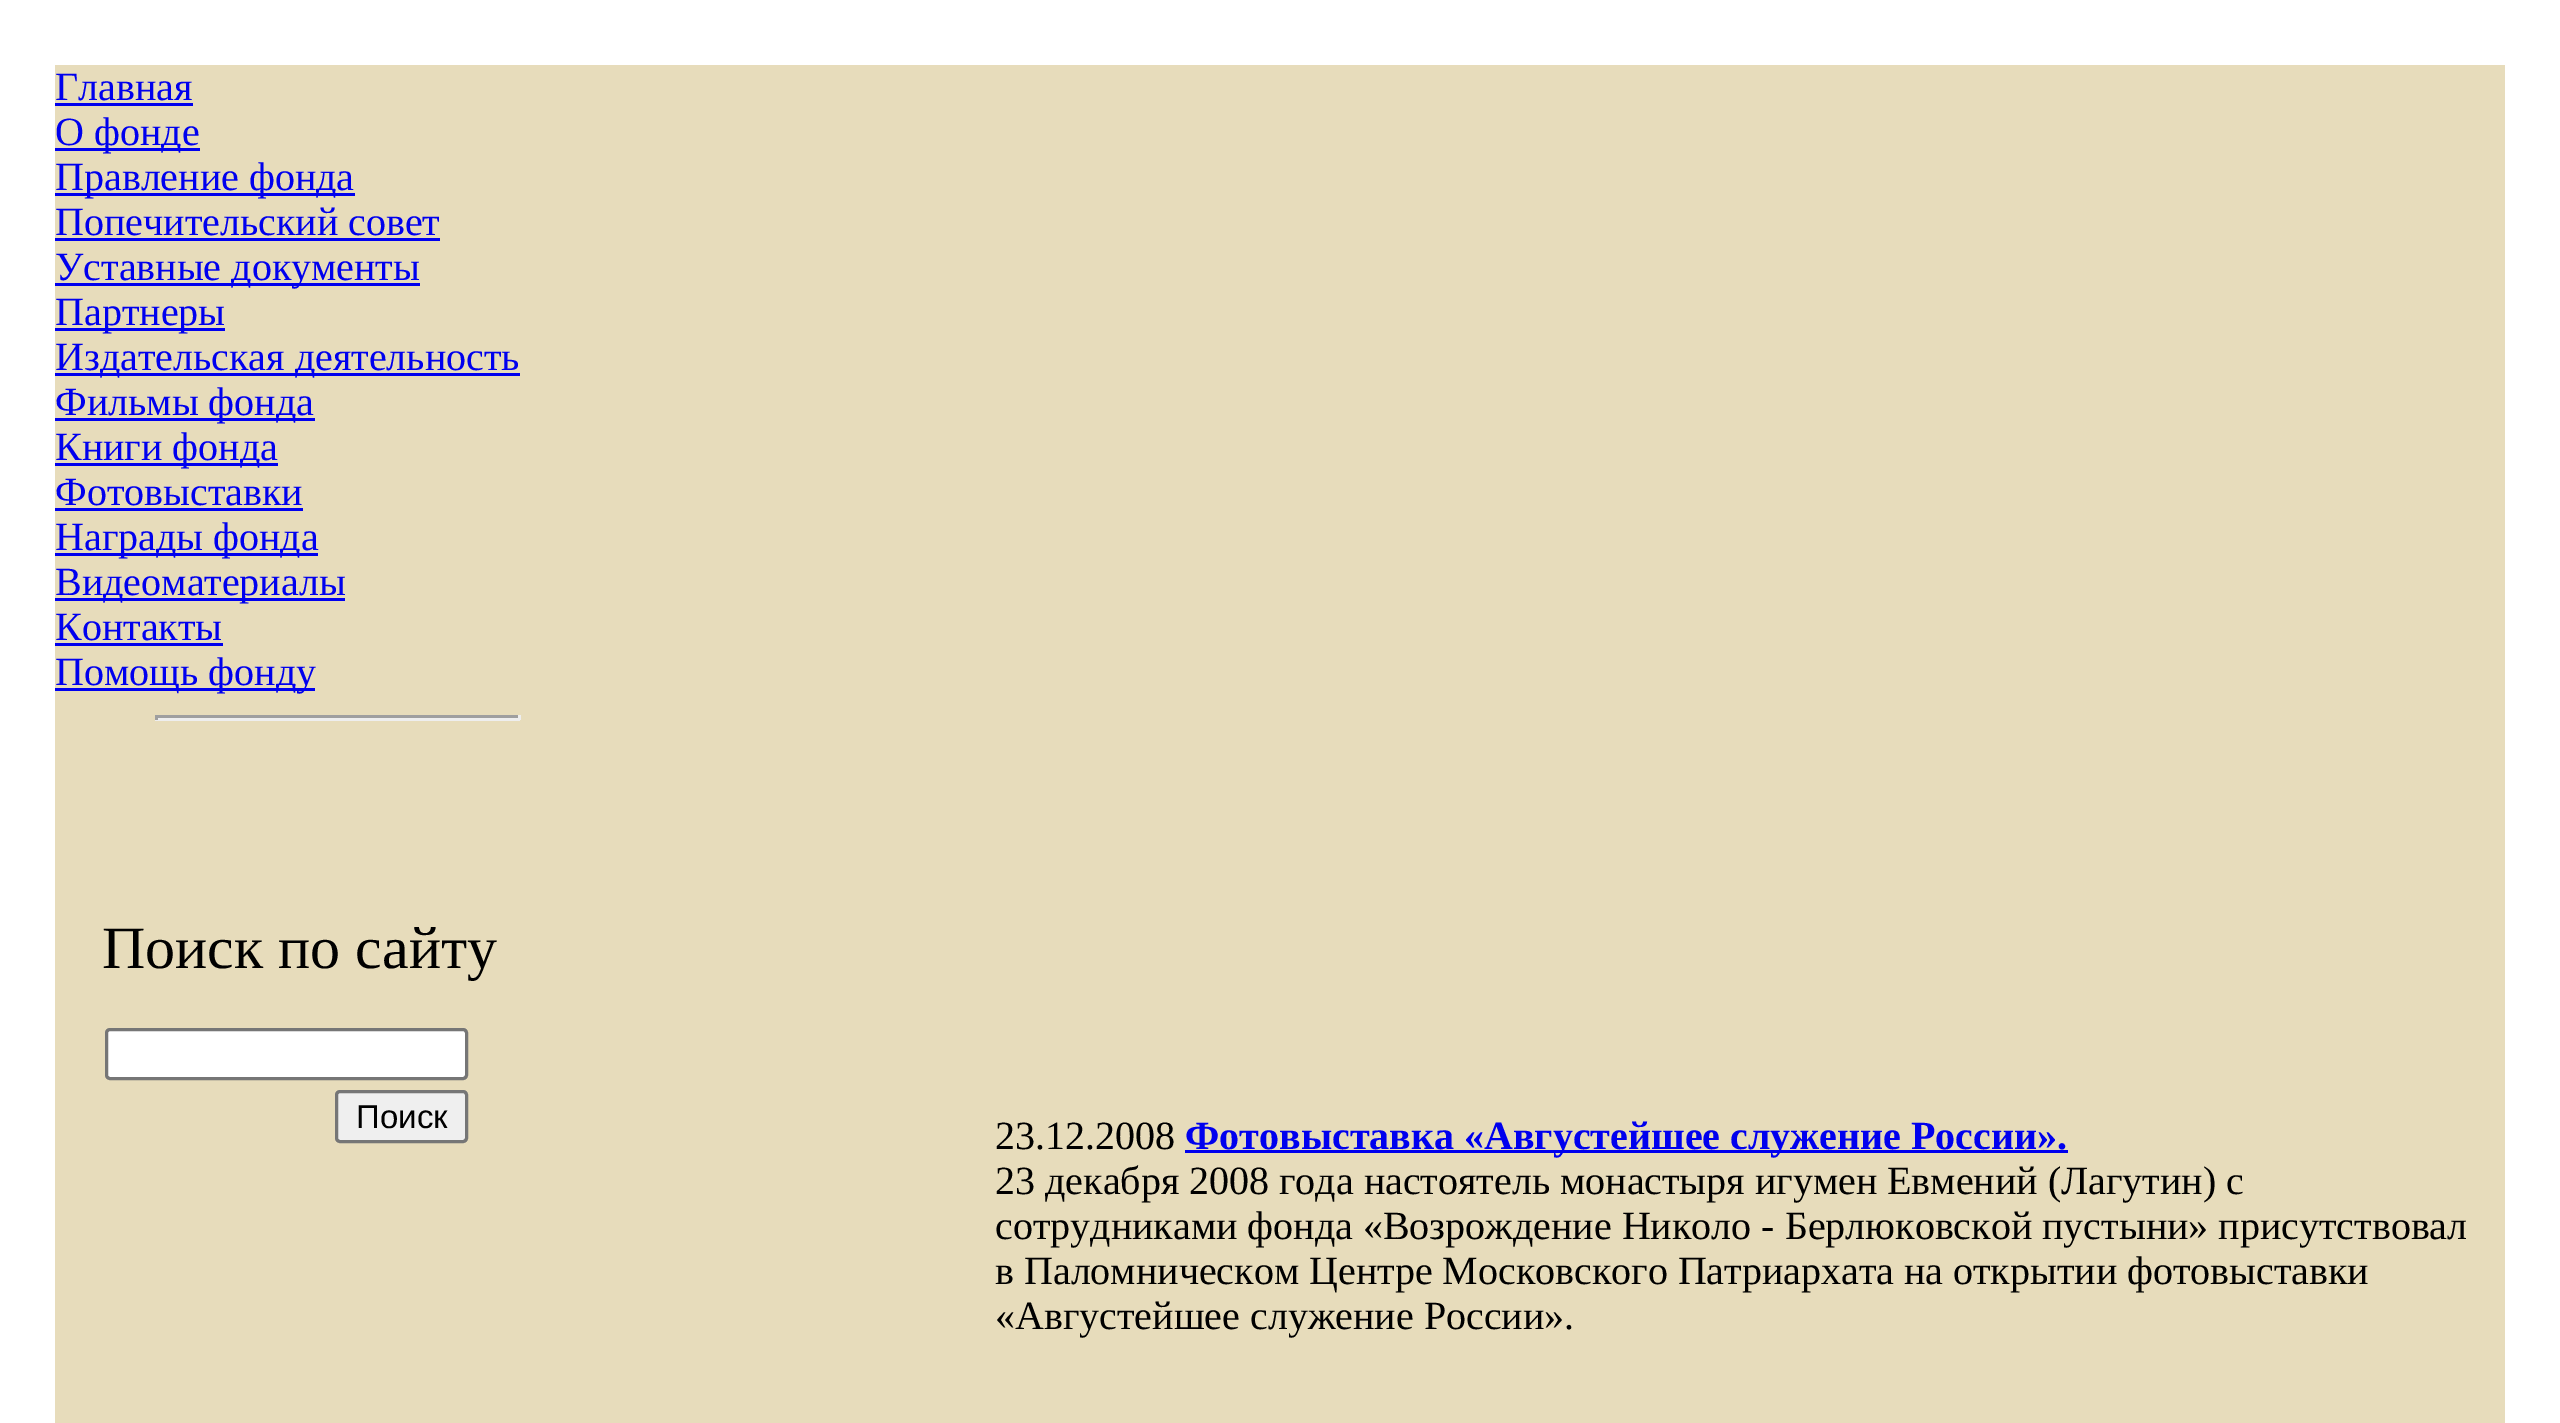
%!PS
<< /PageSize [2560 1423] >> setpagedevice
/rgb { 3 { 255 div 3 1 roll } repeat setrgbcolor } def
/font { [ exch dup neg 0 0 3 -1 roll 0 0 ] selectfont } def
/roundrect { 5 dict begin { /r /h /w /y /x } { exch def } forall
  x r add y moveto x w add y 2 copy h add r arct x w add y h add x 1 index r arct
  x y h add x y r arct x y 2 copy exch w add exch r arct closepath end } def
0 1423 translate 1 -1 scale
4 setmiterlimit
255 255 255 rgb
0 0 2560 1423 rectfill
[
  [55 65 2450 1358 231 220 187]
  [55 103 138 3 0 0 238]
  [55 148 145 3 0 0 238]
  [55 193 300 3 0 0 238]
  [55 238 385 3 0 0 238]
  [55 283 365 3 0 0 238]
  [55 328 170 3 0 0 238]
  [55 373 465 3 0 0 238]
  [55 418 260 3 0 0 238]
  [55 463 223 3 0 0 238]
  [55 508 248 3 0 0 238]
  [55 553 263 3 0 0 238]
  [55 598 290 3 0 0 238]
  [55 643 168 3 0 0 238]
  [55 688 260 3 0 0 238]
  [155 715 365 3 159 159 159]
  [518 715 3 5 238 238 238]
  [155 718 365 3 238 238 238]
  [155 715 3 5 159 159 159]
] { aload pop rgb rectfill } forall
255 255 255 rgb
106.5 1029.5 360 49 3.5 roundrect gsave fill grestore
118 118 118 rgb
3 setlinewidth
stroke
239 239 239 rgb
336.5 1091.5 130 50 3.5 roundrect gsave fill grestore
118 118 118 rgb
stroke
0 0 238 rgb
1185 1150 883 3 rectfill
/LiberationSerif-Regular 40 font
[
  [(Главная) 55 100]
  [(О фонде) 55 145]
  [(Правление фонда) 55 190]
  [(Попечительский совет) 55 235]
  [(Уставные документы) 55 280]
  [(Партнеры) 55 325]
  [(Издательская деятельность) 55 370]
  [(Фильмы фонда) 55 415]
  [(Книги фонда) 55 460]
  [(Фотовыставки) 55 505]
  [(Награды фонда) 55 550]
  [(Видеоматериалы) 55 595]
  [(Контакты) 55 640]
  [(Помощь фонду) 55 685]
] { aload pop moveto show } forall
/LiberationSerif-Regular 60 font
0 0 0 rgb
102 968 moveto (Поиск по сайту) show
/LiberationSans-Regular 33 font
356 1128 moveto (Поиск) show
/LiberationSerif-Regular 40 font
995 1149 moveto (23.12.2008) show
/LiberationSerif-Bold 40 font
0 0 238 rgb
1185 1149 moveto (Фотовыставка «Августейшее служение России».) show
/LiberationSerif-Regular 40 font
0 0 0 rgb
[
  [(23 декабря 2008 года настоятель монастыря игумен Евмений \(Лагутин\) с) 995 1194]
  [(сотрудниками фонда «Возрождение Николо - Берлюковской пустыни» присутствовал) 995 1239]
  [(в Паломническом Центре Московского Патриархата на открытии фотовыставки) 995 1284]
  [(«Августейшее служение России».) 995 1329]
] { aload pop moveto show } forall
showpage
